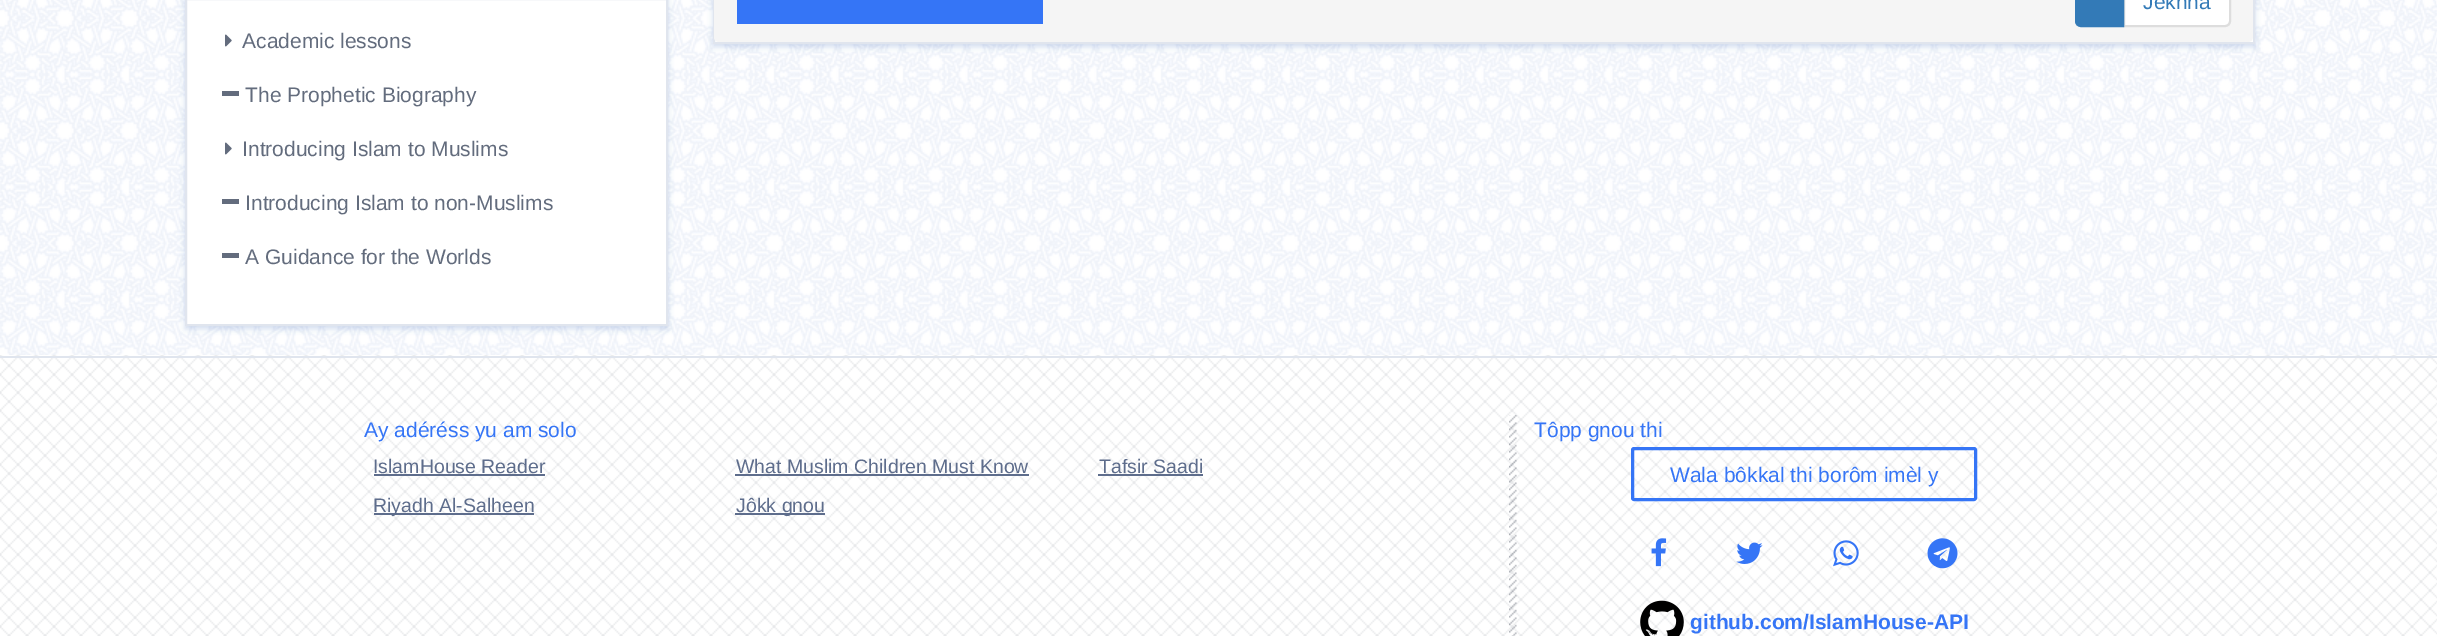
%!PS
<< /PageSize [2437 636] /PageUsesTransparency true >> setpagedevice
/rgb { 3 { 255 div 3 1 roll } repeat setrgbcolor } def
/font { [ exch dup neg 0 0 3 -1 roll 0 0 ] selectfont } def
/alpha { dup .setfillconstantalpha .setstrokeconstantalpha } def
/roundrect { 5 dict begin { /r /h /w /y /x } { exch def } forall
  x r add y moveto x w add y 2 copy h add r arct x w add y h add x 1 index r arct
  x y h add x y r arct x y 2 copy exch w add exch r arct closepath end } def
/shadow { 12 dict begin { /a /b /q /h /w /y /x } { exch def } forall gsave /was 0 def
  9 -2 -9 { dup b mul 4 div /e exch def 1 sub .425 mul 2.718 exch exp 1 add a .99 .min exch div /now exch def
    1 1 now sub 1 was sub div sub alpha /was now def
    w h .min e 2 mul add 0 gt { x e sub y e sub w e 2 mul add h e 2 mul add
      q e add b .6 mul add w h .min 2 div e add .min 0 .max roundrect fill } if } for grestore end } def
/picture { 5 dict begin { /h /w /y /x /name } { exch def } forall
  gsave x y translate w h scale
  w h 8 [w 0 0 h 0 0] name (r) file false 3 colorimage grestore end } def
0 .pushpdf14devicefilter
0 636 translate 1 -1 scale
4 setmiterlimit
255 255 255 rgb
0 0 2437 636 rectfill
(img/1.rgb) 0 0 2437 355 picture
29 79 179 rgb
713 -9 1542 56 0 3 0.2 shadow
255 255 255 rgb
715 37 1538 5 rectfill
224 229 238 rgb
2 setlinewidth
714 -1 1540 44 rectstroke
245 245 245 rgb
714 -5 moveto 2253 -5 lineto 2253 37 lineto 2253 40 2251 42 2248 42 curveto 719 42 lineto 716 42 714 40 714 37 curveto closepath fill
53 117 246 rgb
737 0 306 24 rectfill
255 255 255 rgb
2124 -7 moveto 2225 -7 lineto 2228 -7 2230 -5 2230 -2 curveto 2230 21 lineto 2230 24 2228 26 2225 26 curveto 2124 26 lineto closepath gsave fill grestore
221 221 221 rgb
stroke
51 122 183 rgb
2081 -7 moveto 2123 -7 lineto 2123 26 lineto 2081 26 lineto 2078 26 2076 24 2076 21 curveto 2076 -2 lineto 2076 -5 2078 -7 2081 -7 curveto closepath gsave fill grestore
stroke
29 79 179 rgb
185 -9 483 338 0 3 0.2 shadow
255 255 255 rgb
186 -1 moveto 667 -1 lineto 667 325 lineto 186 325 lineto closepath gsave fill grestore
224 229 238 rgb
stroke
(img/2.rgb) 225 34 7 13 picture
99 108 125 rgb
222 91 17 5 rectfill
(img/2.rgb) 225 142 7 13 picture
222 199 17 5 rectfill
222 253 17 5 rectfill
(img/3.rgb) 0 355 2437 281 picture
[
  [0 356 2437 2 224 229 238]
  [374 474 171 2 94 109 140]
  [735 474 294 2 94 109 140]
  [1098 474 105 2 94 109 140]
  [374 513 160 2 94 109 140]
  [735 513 90 2 94 109 140]
] { aload pop rgb rectfill } forall
(img/4.rgb) 1509 415 8 221 picture
53 117 246 rgb
3 setlinewidth
1632.5 448.5 343 51 1.5 roundrect stroke
(img/5.rgb) 1651 538 16 29 picture
(img/6.rgb) 1736 542 27 22 picture
(img/7.rgb) 1833 540 26 27 picture
(img/8.rgb) 1927 538 31 31 picture
(img/9.rgb) 1640 600 44 36 picture
/LiberationSans-Regular 21 font
51 122 183 rgb
2143 9 moveto (Jèkhna) show
99 108 125 rgb
[
  [(Academic lessons) 242 48]
  [(The Prophetic Biography) 245 102]
  [(Introducing Islam to Muslims) 242 156]
  [(Introducing Islam to non-Muslims) 245 210]
  [(A Guidance for the Worlds) 245 264]
] { aload pop moveto show } forall
53 117 246 rgb
364 437 moveto (Ay adéréss yu am solo) show
/LiberationSans-Regular 19.5 font
94 109 140 rgb
[
  [(IslamHouse Reader) 373 473]
  [(What Muslim Children Must Know) 736 473]
  [(Tafsir Saadi) 1099 473]
  [(Riyadh Al-Salheen) 373 512]
  [(Jôkk gnou) 736 512]
] { aload pop moveto show } forall
/LiberationSans-Regular 21 font
53 117 246 rgb
1534 437 moveto (Tôpp gnou thi) show
1670 482 moveto (Wala bôkkal thi borôm imèl y) show
/LiberationSans-Bold 21 font
1690 629 moveto (github.com/IslamHouse-API) show
.poppdf14devicefilter showpage
